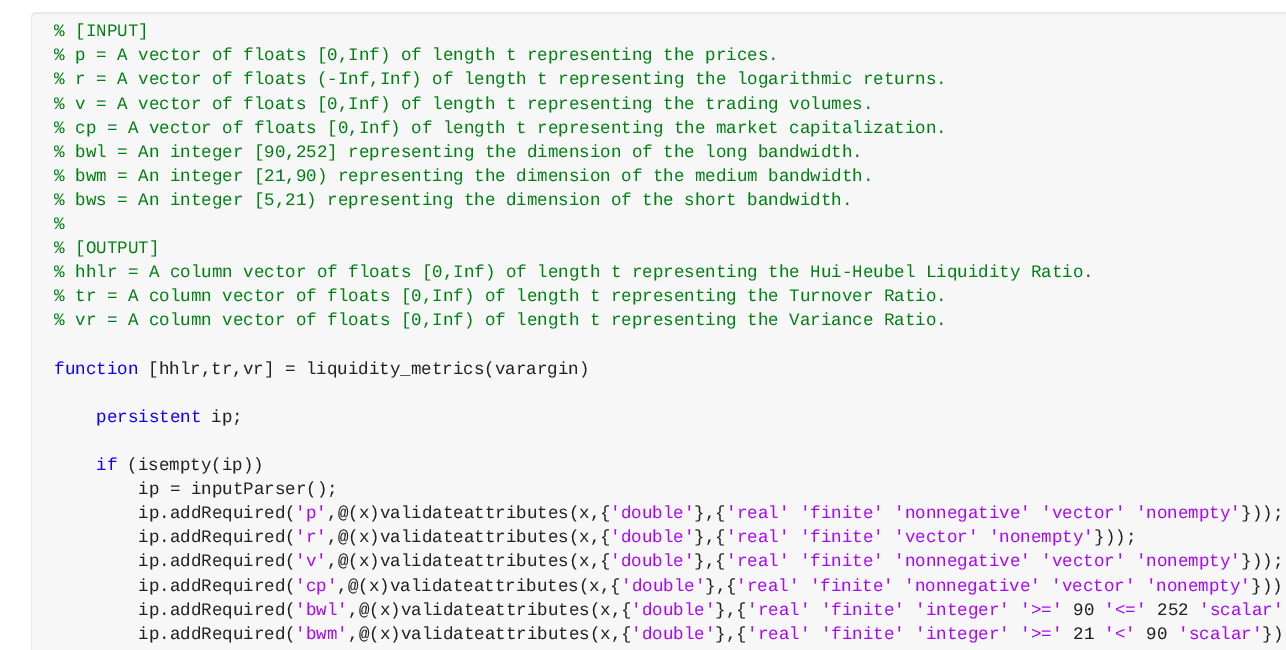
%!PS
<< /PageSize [1286 650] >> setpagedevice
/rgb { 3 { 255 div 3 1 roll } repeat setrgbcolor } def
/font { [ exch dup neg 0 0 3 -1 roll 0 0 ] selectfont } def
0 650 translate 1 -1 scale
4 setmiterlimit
255 255 255 rgb
0 0 1286 650 rectfill
247 247 247 rgb
36 13 moveto 1286 13 lineto 1286 650 lineto 31 650 lineto 31 18 lineto 31 15 33 13 36 13 curveto closepath fill
233 233 233 rgb
36 12 moveto 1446 12 lineto 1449 12 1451 15 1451 18 curveto 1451 44 lineto 31 44 lineto 31 18 lineto 31 15 33 12 36 12 curveto closepath 36 14 moveto 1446 14 lineto 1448 14 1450 15 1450 18 curveto 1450 44 lineto 32 44 lineto 32 18 lineto 32 15 34 14 36 14 curveto closepath eofill
31 44 1 606 rectfill
/LiberationMono-Regular 17.5 font
0 128 19 rgb
[
  [(% [INPUT]) 54 36]
  [(% p = A vector of floats [0,Inf\) of length t representing the prices.) 54 60]
  [(% r = A vector of floats \(-Inf,Inf\) of length t representing the logarithmic returns.) 54 84]
  [(% v = A vector of floats [0,Inf\) of length t representing the trading volumes.) 54 109]
  [(% cp = A vector of floats [0,Inf\) of length t representing the market capitalization.) 54 133]
  [(% bwl = An integer [90,252] representing the dimension of the long bandwidth.) 54 157]
  [(% bwm = An integer [21,90\) representing the dimension of the medium bandwidth.) 54 181]
  [(% bws = An integer [5,21\) representing the dimension of the short bandwidth.) 54 205]
  [(%) 54 229]
  [(% [OUTPUT]) 54 253]
  [(% hhlr = A column vector of floats [0,Inf\) of length t representing the Hui-Heubel Liquidity Ratio.) 54 277]
  [(% tr = A column vector of floats [0,Inf\) of length t representing the Turnover Ratio.) 54 301]
  [(% vr = A column vector of floats [0,Inf\) of length t representing the Variance Ratio.) 54 325]
] { aload pop moveto show } forall
14 0 255 rgb
54 374 moveto (function) show
33 33 33 rgb
148 374 moveto ([hhlr,tr,vr] = liquidity_metrics\(varargin\)) show
14 0 255 rgb
96 422 moveto (persistent) show
33 33 33 rgb
211 422 moveto (ip;) show
14 0 255 rgb
96 470 moveto (if) show
33 33 33 rgb
[
  [(\(isempty\(ip\)\)) 127 470]
  [(ip = inputParser\(\);) 138 494]
  [(ip.addRequired\() 138 518]
] { aload pop moveto show } forall
167 9 245 rgb
295 518 moveto ('p') show
33 33 33 rgb
327 518 moveto (,@\(x\)validateattributes\(x,{) show
167 9 245 rgb
610 518 moveto ('double') show
33 33 33 rgb
694 518 moveto (},{) show
167 9 245 rgb
726 518 moveto ('real' 'finite' 'nonnegative' 'vector' 'nonempty') show
33 33 33 rgb
1241 518 moveto (}\)\);) show
138 542 moveto (ip.addRequired\() show
167 9 245 rgb
295 542 moveto ('r') show
33 33 33 rgb
327 542 moveto (,@\(x\)validateattributes\(x,{) show
167 9 245 rgb
610 542 moveto ('double') show
33 33 33 rgb
694 542 moveto (},{) show
167 9 245 rgb
726 542 moveto ('real' 'finite' 'vector' 'nonempty') show
33 33 33 rgb
1094 542 moveto (}\)\);) show
138 566 moveto (ip.addRequired\() show
167 9 245 rgb
295 566 moveto ('v') show
33 33 33 rgb
327 566 moveto (,@\(x\)validateattributes\(x,{) show
167 9 245 rgb
610 566 moveto ('double') show
33 33 33 rgb
694 566 moveto (},{) show
167 9 245 rgb
726 566 moveto ('real' 'finite' 'nonnegative' 'vector' 'nonempty') show
33 33 33 rgb
1241 566 moveto (}\)\);) show
138 591 moveto (ip.addRequired\() show
167 9 245 rgb
295 591 moveto ('cp') show
33 33 33 rgb
337 591 moveto (,@\(x\)validateattributes\(x,{) show
167 9 245 rgb
621 591 moveto ('double') show
33 33 33 rgb
705 591 moveto (},{) show
167 9 245 rgb
736 591 moveto ('real' 'finite' 'nonnegative' 'vector' 'nonempty') show
33 33 33 rgb
1251 591 moveto (}\)\)) show
138 615 moveto (ip.addRequired\() show
167 9 245 rgb
295 615 moveto ('bwl') show
33 33 33 rgb
348 615 moveto (,@\(x\)validateattributes\(x,{) show
167 9 245 rgb
631 615 moveto ('double') show
33 33 33 rgb
715 615 moveto (},{) show
167 9 245 rgb
747 615 moveto ('real' 'finite' 'integer' '>=') show
33 33 33 rgb
1073 615 moveto (90) show
167 9 245 rgb
1104 615 moveto ('<=') show
33 33 33 rgb
1157 615 moveto (252) show
167 9 245 rgb
1199 615 moveto ('scalar') show
33 33 33 rgb
138 639 moveto (ip.addRequired\() show
167 9 245 rgb
295 639 moveto ('bwm') show
33 33 33 rgb
348 639 moveto (,@\(x\)validateattributes\(x,{) show
167 9 245 rgb
631 639 moveto ('double') show
33 33 33 rgb
715 639 moveto (},{) show
167 9 245 rgb
747 639 moveto ('real' 'finite' 'integer' '>=') show
33 33 33 rgb
1073 639 moveto (21) show
167 9 245 rgb
1104 639 moveto ('<') show
33 33 33 rgb
1146 639 moveto (90) show
167 9 245 rgb
1178 639 moveto ('scalar') show
33 33 33 rgb
1262 639 moveto (}\)) show
showpage
